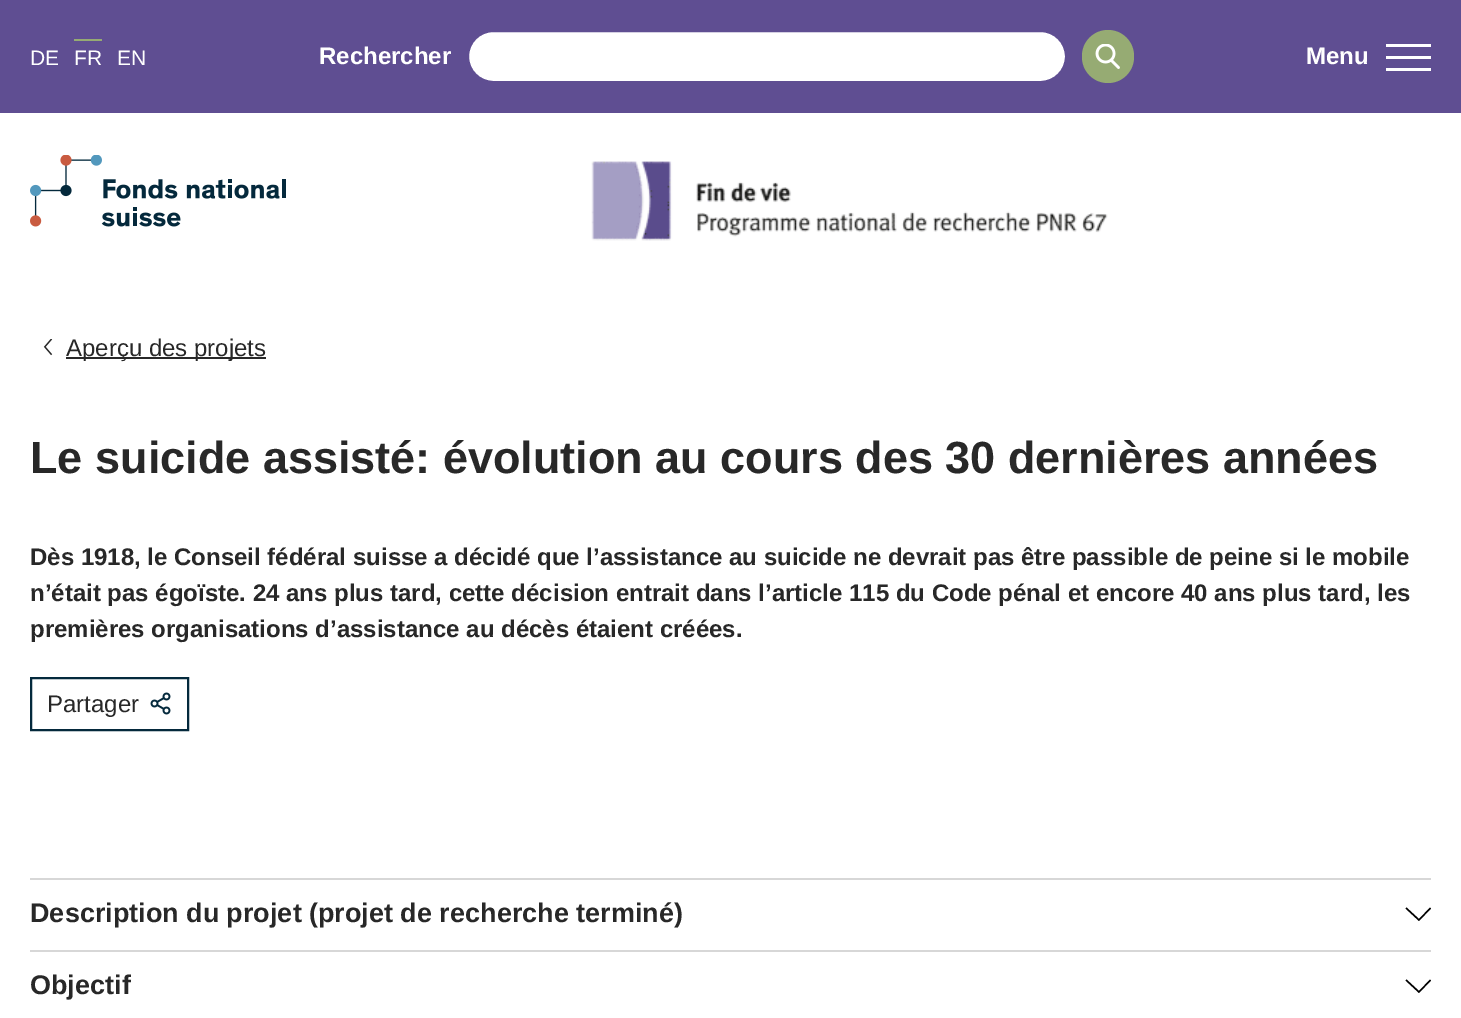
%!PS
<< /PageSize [1461 1018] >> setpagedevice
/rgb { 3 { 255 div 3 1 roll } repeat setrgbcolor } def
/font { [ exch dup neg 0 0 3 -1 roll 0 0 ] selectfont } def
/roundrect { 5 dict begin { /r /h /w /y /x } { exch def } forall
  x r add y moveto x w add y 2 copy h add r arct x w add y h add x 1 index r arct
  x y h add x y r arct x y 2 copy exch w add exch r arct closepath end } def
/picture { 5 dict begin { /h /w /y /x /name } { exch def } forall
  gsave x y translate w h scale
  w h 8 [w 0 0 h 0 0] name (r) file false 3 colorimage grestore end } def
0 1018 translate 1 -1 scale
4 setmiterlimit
255 255 255 rgb
0 0 1461 1018 rectfill
95 78 146 rgb
0 0 1461 113 rectfill
150 171 115 rgb
74 39 28 2 rectfill
255 255 255 rgb
468 31 598 51 25.5 roundrect gsave fill grestore
95 78 146 rgb
2 setlinewidth
stroke
150 171 115 rgb
1082 30 52 53 26 roundrect fill
(img/1.rgb) 1095 44 25 25 picture
[
  [1386 56 45 3 255 255 255]
  [1386 44 45 3 255 255 255]
  [1386 68 45 3 255 255 255]
] { aload pop rgb rectfill } forall
(img/2.rgb) 30 155 256 72 picture
(img/3.rgb) 591 161 517 80 picture
(img/4.rgb) 43 339 10 17 picture
40 40 40 rgb
66 357 200 2 rectfill
4 41 60 rgb
31 678 157 52 rectstroke
(img/5.rgb) 150 692 21 23 picture
215 215 215 rgb
30 878 1401 2 rectfill
0 0 0 rgb
1419 921 moveto 1405.5 908.5 lineto 1406.5 907.5 lineto 1419 919 lineto 1430 907.5 lineto 1431 908.5 lineto closepath fill
215 215 215 rgb
30 950 1401 2 rectfill
0 0 0 rgb
1419 993 moveto 1405.5 980.5 lineto 1406.5 979.5 lineto 1419 991 lineto 1430 979.5 lineto 1431 980.5 lineto closepath fill
/LiberationSans-Regular 21 font
255 255 255 rgb
[
  [(DE) 30 65]
  [(FR) 74 65]
  [(EN) 117 65]
] { aload pop moveto show } forall
/LiberationSans-Bold 24 font
319 64 moveto (Rechercher) show
1306 64 moveto (Menu) show
/LiberationSans-Regular 24 font
40 40 40 rgb
66 356 moveto (Aperçu des projets) show
/LiberationSans-Bold 45 font
30 473 moveto (Le suicide assisté: évolution au cours des 30 dernières années) show
/LiberationSans-Bold 24 font
[
  [(Dès 1918, le Conseil fédéral suisse a décidé que l’assistance au suicide ne devrait pas être passible de peine si le mobile) 30 565]
  [(n’était pas égoïste. 24 ans plus tard, cette décision entrait dans l’article 115 du Code pénal et encore 40 ans plus tard, les) 30 601]
  [(premières organisations d’assistance au décès étaient créées.) 30 637]
] { aload pop moveto show } forall
/LiberationSans-Regular 24 font
47 712 moveto (Partager) show
/LiberationSans-Bold 27 font
30 922 moveto (Description du projet \(projet de recherche terminé\)) show
30 994 moveto (Objectif) show
showpage
